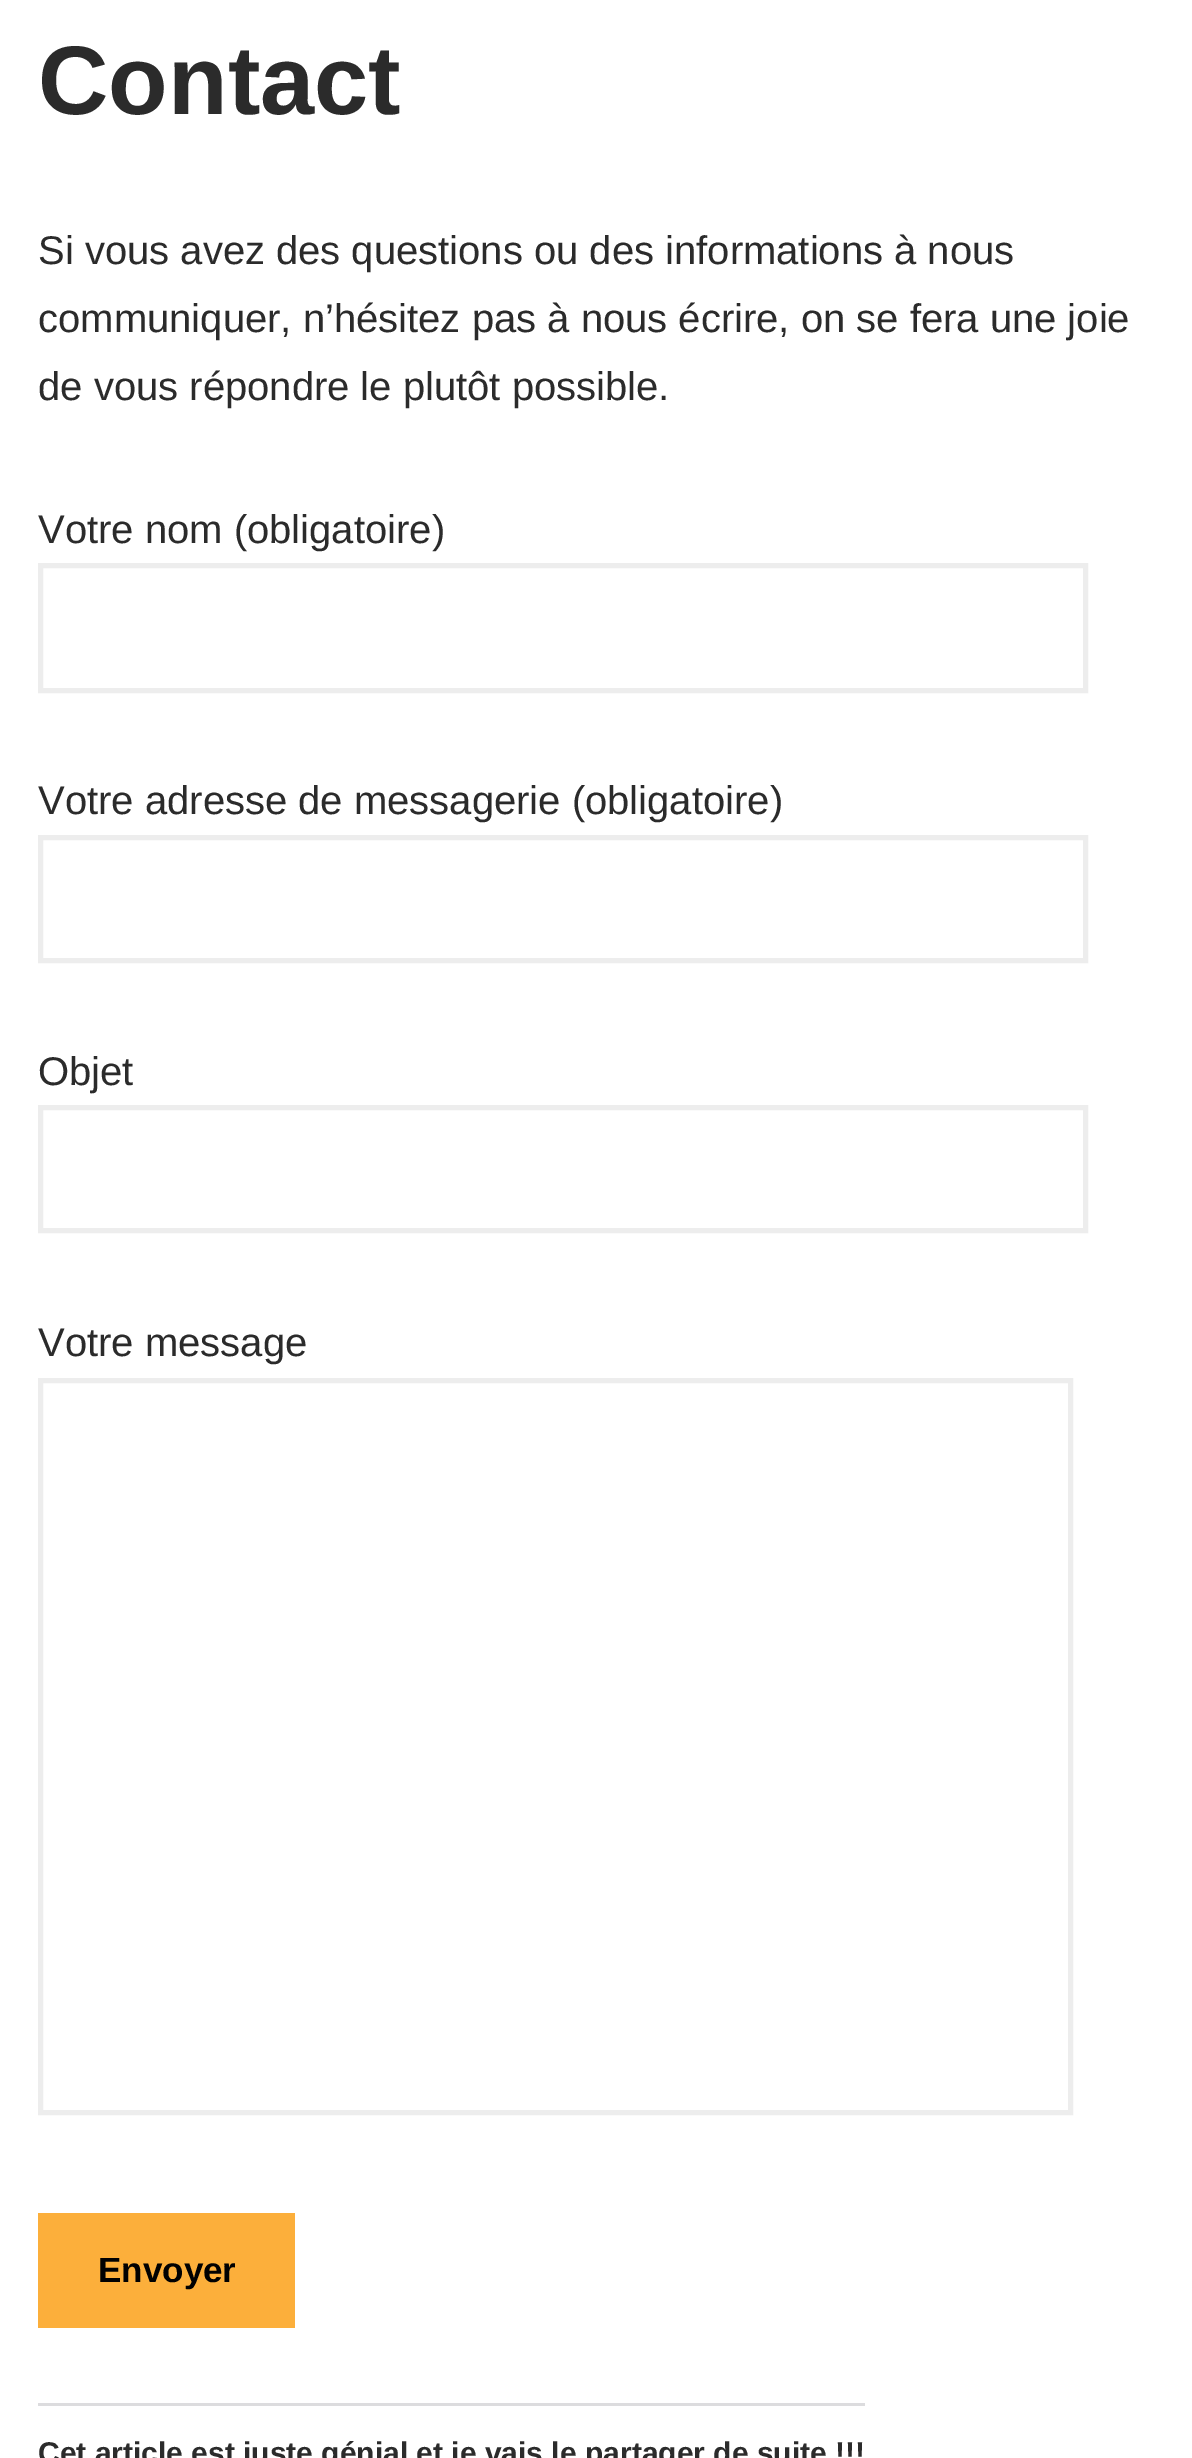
%!PS
<< /PageSize [1192 2458] >> setpagedevice
/rgb { 3 { 255 div 3 1 roll } repeat setrgbcolor } def
/font { [ exch dup neg 0 0 3 -1 roll 0 0 ] selectfont } def
0 2458 translate 1 -1 scale
4 setmiterlimit
255 255 255 rgb
0 0 1192 2458 rectfill
237 237 237 rgb
5 setlinewidth
40.5 565.5 1045 125 rectstroke
40.5 837.5 1045 123 rectstroke
40.5 1107.5 1045 123 rectstroke
40.5 1380.5 1030 732 rectstroke
252 175 59 rgb
38 2213 257 115 rectfill
220 220 222 rgb
38 2403 827 3 rectfill
/LiberationSans-Bold 97.5 font
43 43 43 rgb
38 114 moveto (Contact) show
/LiberationSans-Regular 40 font
[
  [(Si vous avez des questions ou des informations à nous) 38 264]
  [(communiquer, n’hésitez pas à nous écrire, on se fera une joie) 38 332]
  [(de vous répondre le plutôt possible.) 38 400]
  [(Votre nom \(obligatoire\)) 38 543]
  [(Votre adresse de messagerie \(obligatoire\)) 38 814]
  [(Objet) 38 1085]
  [(Votre message) 38 1356]
] { aload pop moveto show } forall
/LiberationSans-Bold 35 font
1 1 1 rgb
98 2282 moveto (Envoyer) show
/LiberationSans-Bold 30 font
43 43 43 rgb
38 2463 moveto (Cet article est juste génial et je vais le partager de suite !!!) show
showpage
